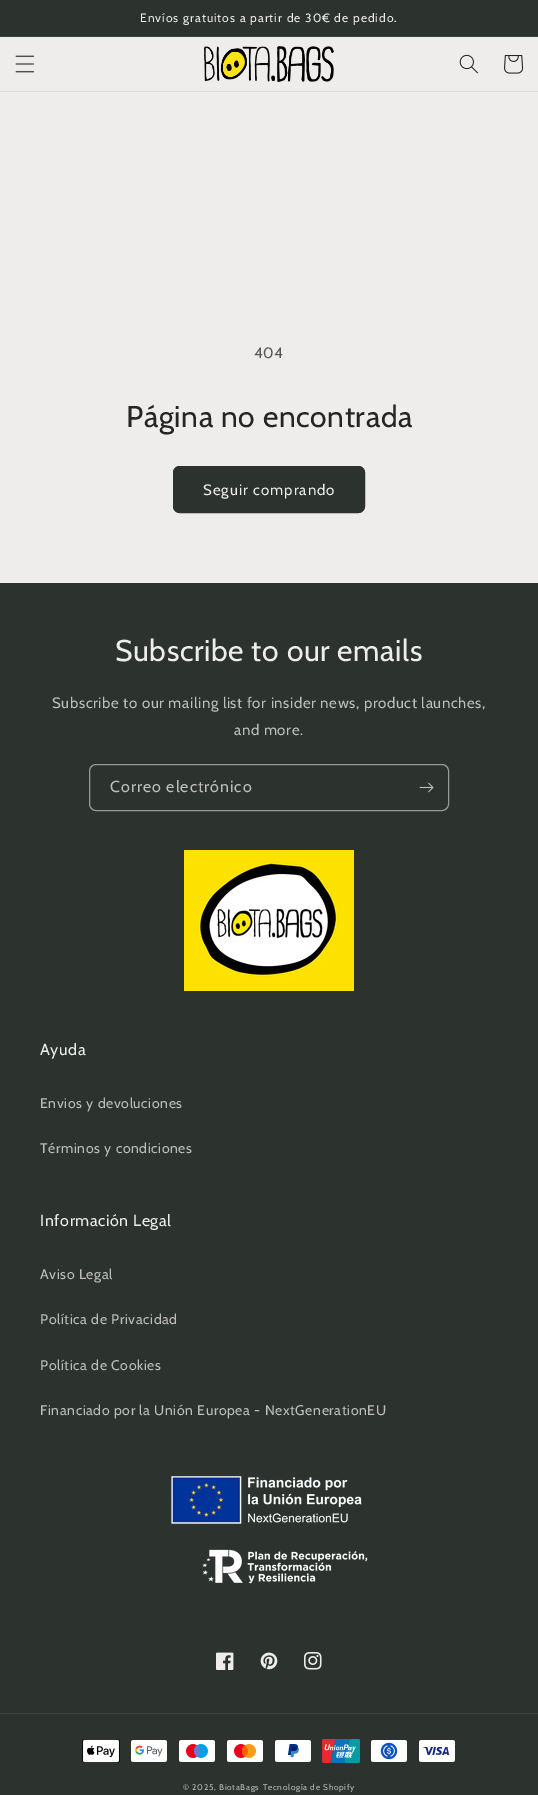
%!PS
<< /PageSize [538 1795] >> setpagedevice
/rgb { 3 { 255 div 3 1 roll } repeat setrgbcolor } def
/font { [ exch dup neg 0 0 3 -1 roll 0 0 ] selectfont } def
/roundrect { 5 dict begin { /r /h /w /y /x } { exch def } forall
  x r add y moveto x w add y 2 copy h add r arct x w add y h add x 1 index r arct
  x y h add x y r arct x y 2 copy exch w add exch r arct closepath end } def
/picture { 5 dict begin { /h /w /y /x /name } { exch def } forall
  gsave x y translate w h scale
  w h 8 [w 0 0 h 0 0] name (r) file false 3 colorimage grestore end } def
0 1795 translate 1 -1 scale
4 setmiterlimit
239 236 236 rgb
0 0 538 1795 rectfill
[
  [0 0 538 36 44 51 47]
  [0 36 538 1 60 66 62]
  [0 91 538 1 223 220 220]
] { aload pop rgb rectfill } forall
(img/1.rgb) 15 55 20 18 picture
(img/2.rgb) 204 46 130 36 picture
(img/3.rgb) 459 54 19 20 picture
(img/4.rgb) 504 55 20 19 picture
44 51 47 rgb
173 466 192 47 7 roundrect fill
173.5 466.5 191 46 6.5 roundrect stroke
0 583 538 1212 rectfill
151 153 151 rgb
89.5 764.5 359 46 6.5 roundrect stroke
(img/5.rgb) 419 782 15 11 picture
(img/6.rgb) 184 850 170 141 picture
(img/7.rgb) 171 1476 197 108 picture
(img/8.rgb) 216 1652 18 18 picture
(img/9.rgb) 260 1652 18 18 picture
(img/10.rgb) 304 1652 18 18 picture
60 66 62 rgb
0 1713 538 1 rectfill
(img/11.rgb) 82 1739 38 24 picture
(img/12.rgb) 131 1740 36 22 picture
(img/13.rgb) 179 1740 36 22 picture
(img/14.rgb) 227 1740 36 22 picture
(img/15.rgb) 275 1740 36 22 picture
(img/16.rgb) 322 1739 38 24 picture
(img/17.rgb) 371 1740 36 22 picture
(img/18.rgb) 419 1740 36 22 picture
/Cabin-Regular 12 font
239 236 236 rgb
140 22 moveto 1 0 (Envíos gratuitos a partir de 30€ de pedido.) ashow
/Cabin-Regular 15 font
88 87 87 rgb
254 358 moveto 0.6 0 (404) ashow
/Cabin-Regular 30 font
37 37 37 rgb
126 427 moveto 0.6 0 (Página no encontrada) ashow
/Cabin-Regular 15 font
239 236 236 rgb
203 495 moveto 1 0 (Seguir comprando) ashow
/Cabin-Regular 30 font
115 661 moveto 0.6 0 (Subscribe to our emails) ashow
/Cabin-Regular 15 font
190 190 189 rgb
52 708 moveto 0.6 0 (Subscribe to our mailing list for insider news, product launches,) ashow
234 735 moveto 0.6 0 (and more.) ashow
/Cabin-Regular 16 font
110 792 moveto 1 0 (Correo electrónico) ashow
239 236 236 rgb
40 1055 moveto 0.6 0 (Ayuda) ashow
/Cabin-Regular 14 font
190 190 189 rgb
40 1108 moveto 0.6 0 (Envios y devoluciones) ashow
40 1153 moveto 0.6 0 (Términos y condiciones) ashow
/Cabin-Regular 16 font
239 236 236 rgb
40 1226 moveto 0.6 0 (Información Legal) ashow
/Cabin-Regular 14 font
190 190 189 rgb
40 1279 moveto 0.6 0 (Aviso Legal) ashow
40 1324 moveto 0.6 0 (Política de Privacidad) ashow
40 1370 moveto 0.6 0 (Política de Cookies) ashow
40 1415 moveto 0.6 0 (Financiado por la Unión Europea - NextGenerationEU) ashow
/Cabin-Regular 8.25 font
183 1790 moveto 0.7 0 (© 2025, BiotaBags) ashow
263 1790 moveto 0.7 0 (Tecnología de Shopify) ashow
showpage
